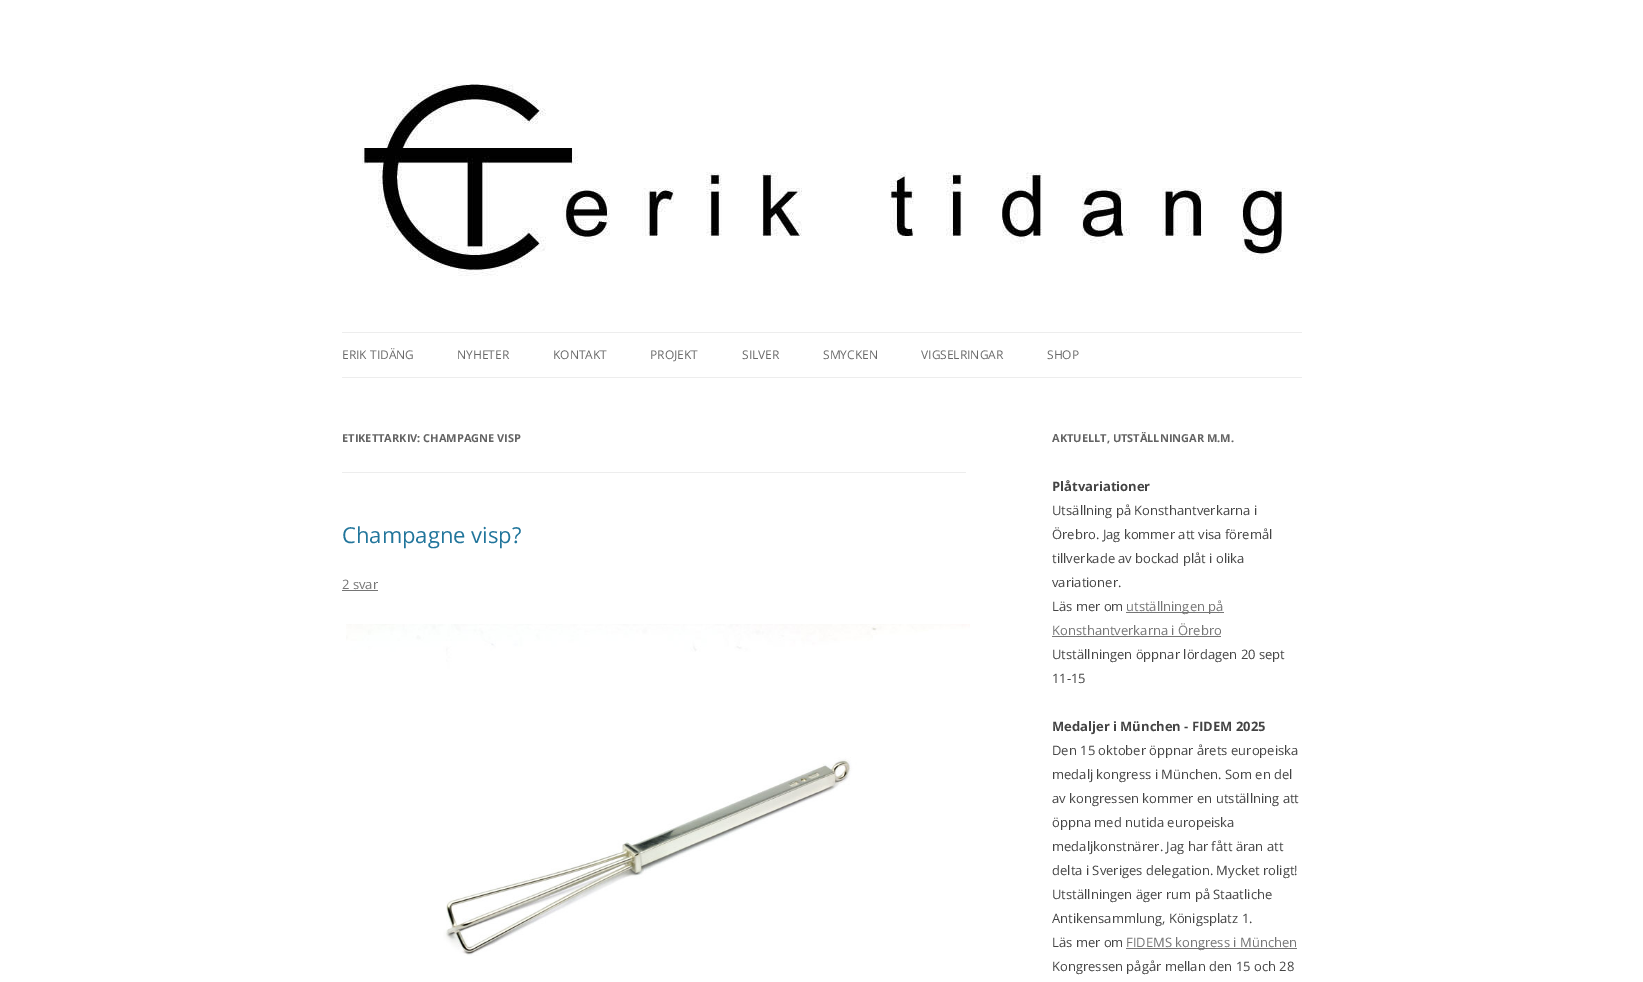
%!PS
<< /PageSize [1643 982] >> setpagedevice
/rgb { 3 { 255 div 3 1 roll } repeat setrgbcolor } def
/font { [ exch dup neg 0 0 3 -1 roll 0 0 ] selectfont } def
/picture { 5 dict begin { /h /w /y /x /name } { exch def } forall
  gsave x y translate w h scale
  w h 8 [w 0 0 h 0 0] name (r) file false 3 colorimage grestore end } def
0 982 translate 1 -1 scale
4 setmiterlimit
255 255 255 rgb
0 0 1643 982 rectfill
(img/1.rgb) 362 84 920 192 picture
[
  [342 332 960 1 237 237 237]
  [342 377 960 1 237 237 237]
  [342 472 624 1 237 237 237]
  [342 590 36 1 117 117 117]
] { aload pop rgb rectfill } forall
(img/2.rgb) 346 624 624 332 picture
[
  [1126 612 98 1 117 117 117]
  [1052 636 169 1 117 117 117]
  [1126 948 171 1 117 117 117]
] { aload pop rgb rectfill } forall
/OpenSans-Regular 12 font
106 106 106 rgb
[
  [(ERIK TIDÄNG) 342 359]
  [(NYHETER) 457 359]
  [(KONTAKT) 553 359]
  [(PROJEKT) 650 359]
  [(SILVER) 742 359]
  [(SMYCKEN) 823 359]
  [(VIGSELRINGAR) 921 359]
  [(SHOP) 1047 359]
] { aload pop moveto show } forall
/OpenSans-Bold 11 font
99 99 99 rgb
342 442 moveto (ETIKETTARKIV: CHAMPAGNE VISP) show
/OpenSans-Regular 22 font
33 117 155 rgb
342 543 moveto (Champagne visp?) show
/OpenSans-Regular 13 font
117 117 117 rgb
342 589 moveto (2 svar) show
/OpenSans-Bold 11 font
99 99 99 rgb
1052 442 moveto (AKTUELLT, UTSTÄLLNINGAR M.M.) show
/OpenSans-Bold 13 font
68 68 68 rgb
1052 491 moveto (Plåtvariationer) show
/OpenSans-Regular 13 font
[
  [(Utsällning på Konsthantverkarna i) 1052 515]
  [(Örebro. Jag kommer att visa föremål) 1052 539]
  [(tillverkade av bockad plåt i olika) 1052 563]
  [(variationer.) 1052 587]
  [(Läs mer om) 1052 611]
] { aload pop moveto show } forall
117 117 117 rgb
1126 611 moveto (utställningen på) show
1052 635 moveto (Konsthantverkarna i Örebro) show
68 68 68 rgb
1052 659 moveto (Utställningen öppnar lördagen 20 sept) show
1052 683 moveto (11-15) show
/OpenSans-Bold 13 font
1052 731 moveto (Medaljer i München - FIDEM 2025) show
/OpenSans-Regular 13 font
[
  [(Den 15 oktober öppnar årets europeiska) 1052 755]
  [(medalj kongress i München. Som en del) 1052 779]
  [(av kongressen kommer en utställning att) 1052 803]
  [(öppna med nutida europeiska) 1052 827]
  [(medaljkonstnärer. Jag har fått äran att) 1052 851]
  [(delta i Sveriges delegation. Mycket roligt!) 1052 875]
  [(Utställningen äger rum på Staatliche) 1052 899]
  [(Antikensammlung, Königsplatz 1.) 1052 923]
  [(Läs mer om) 1052 947]
] { aload pop moveto show } forall
117 117 117 rgb
1126 947 moveto (FIDEMS kongress i München) show
68 68 68 rgb
1052 971 moveto (Kongressen pågår mellan den 15 och 28) show
showpage
